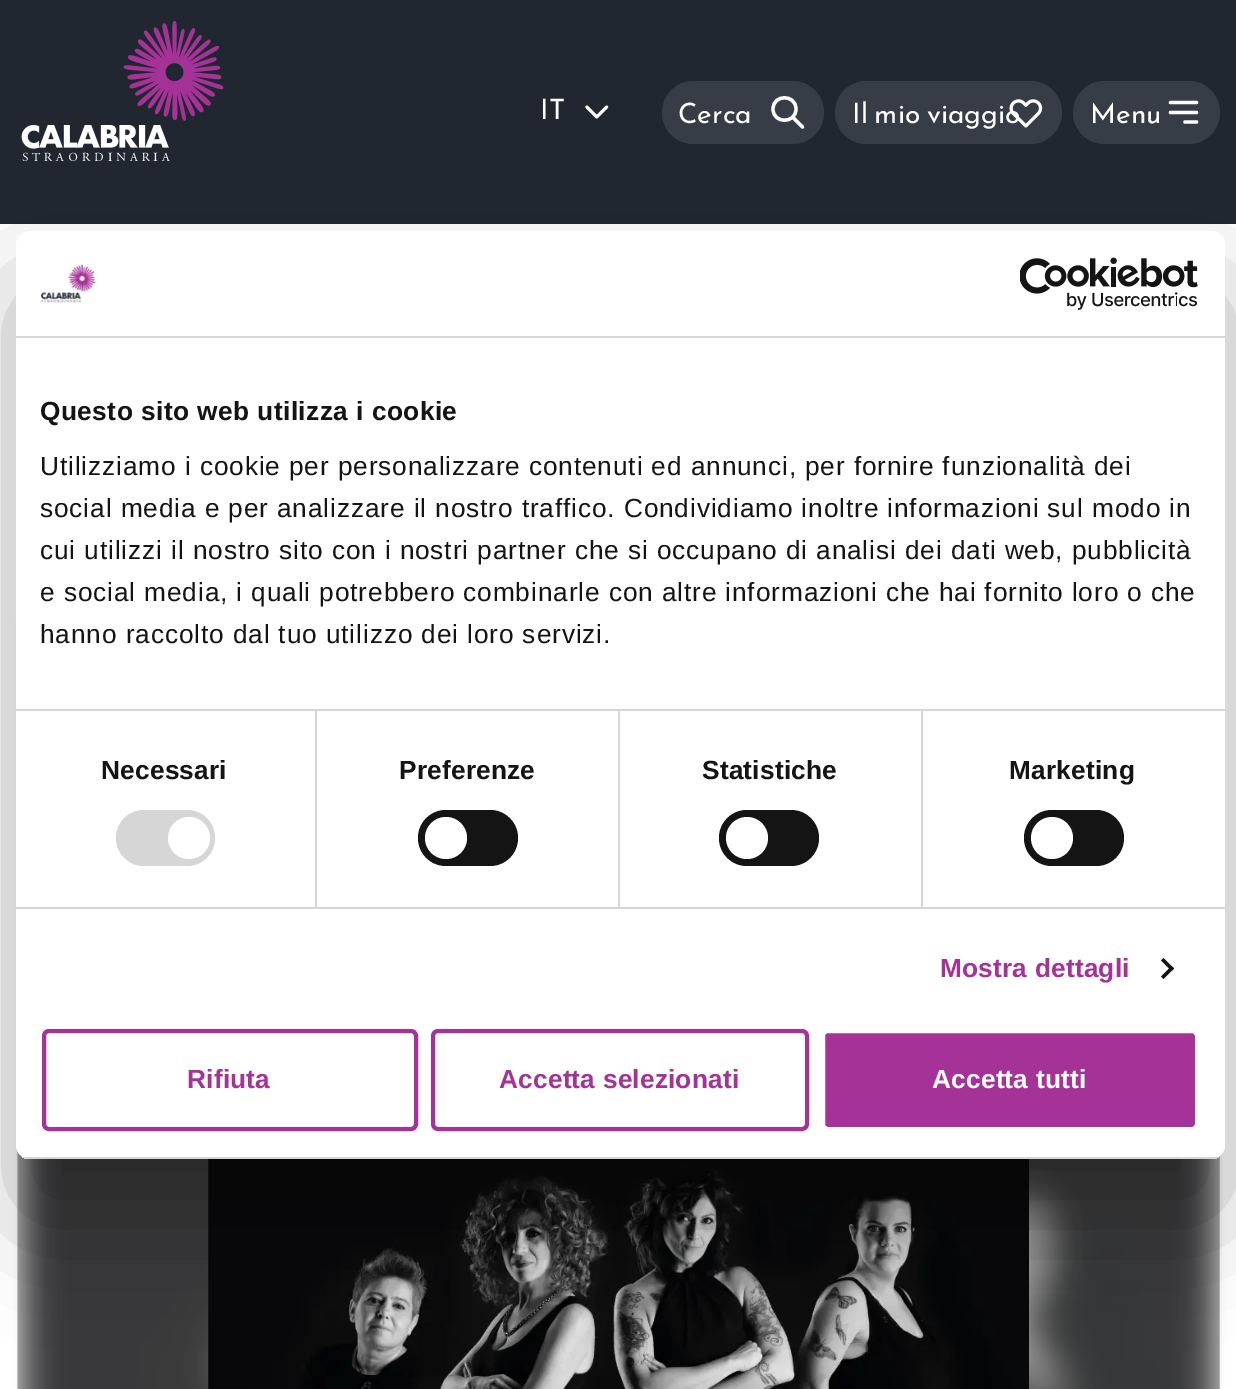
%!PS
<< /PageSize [1236 1389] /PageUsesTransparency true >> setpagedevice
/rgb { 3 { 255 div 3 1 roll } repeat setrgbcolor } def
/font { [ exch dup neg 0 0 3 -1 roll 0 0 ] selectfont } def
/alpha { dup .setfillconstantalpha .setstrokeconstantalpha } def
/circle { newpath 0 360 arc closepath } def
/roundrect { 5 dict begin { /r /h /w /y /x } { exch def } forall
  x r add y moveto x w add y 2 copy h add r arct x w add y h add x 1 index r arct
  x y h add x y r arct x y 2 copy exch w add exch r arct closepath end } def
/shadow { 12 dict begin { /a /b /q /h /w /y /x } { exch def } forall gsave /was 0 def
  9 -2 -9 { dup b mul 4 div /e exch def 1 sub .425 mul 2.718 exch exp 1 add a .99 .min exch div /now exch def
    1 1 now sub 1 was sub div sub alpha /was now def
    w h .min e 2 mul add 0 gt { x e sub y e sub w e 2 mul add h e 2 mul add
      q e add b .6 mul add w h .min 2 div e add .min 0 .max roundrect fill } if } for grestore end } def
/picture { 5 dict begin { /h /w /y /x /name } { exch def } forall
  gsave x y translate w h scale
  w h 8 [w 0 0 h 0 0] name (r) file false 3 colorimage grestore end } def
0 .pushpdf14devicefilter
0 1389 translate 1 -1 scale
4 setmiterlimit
33 39 49 rgb
0 0 1236 1389 rectfill
(img/1.rgb) 21 21 203 140 picture
(img/2.rgb) 585 105 24 14 picture
55 61 70 rgb
662 81 162 63 31.5 roundrect fill
255 255 255 rgb
3.3 setlinewidth
1 setlinecap
1 setlinejoin
802.5 127 moveto 792.5 117 lineto 796 109 moveto 796 124 773 124 773 109 curveto 773 94 796 94 796 109 curveto closepath stroke
55 61 70 rgb
835 81 227 63 31.5 roundrect fill
1073 81 147 63 31.5 roundrect fill
255 255 255 rgb
1170.5 102.5 moveto 1196.5 102.5 lineto 1170.5 112.5 moveto 1196.5 112.5 lineto 1185 122 moveto 1196.5 122 lineto stroke
0 224 1236 1165 rectfill
gsave
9 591 moveto 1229 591 lineto 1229 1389 lineto 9 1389 lineto closepath 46 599 moveto 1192 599 lineto 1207.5 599 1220 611.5 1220 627 curveto 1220 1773 lineto 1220 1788.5 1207.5 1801 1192 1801 curveto 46 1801 lineto 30.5 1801 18 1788.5 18 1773 curveto 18 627 lineto 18 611.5 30.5 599 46 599 curveto closepath eoclip newpath
0 0 0 rgb
18 600 1202 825 28 2.5 0.1 shadow
grestore
(img/4.rgb) 17 1150 1203 239 picture
(img/5.rgb) 208 1159 821 230 picture
/JosefinSans-Thin 28 font
540 119 moveto (IT) show
678 123 moveto (Cerca) show
852 123 moveto -2 0 32 (Il mio viaggio) widthshow
(img/3.rgb) 1009 99 34 29 picture
1090 123 moveto (Menu) show
0 0 0 rgb
16 287 1209 928 14 59.5 0.3 shadow
255 255 255 rgb
16 231 1209 928 14 roundrect fill
214 214 214 rgb
16 336 1209 2 rectfill
(img/6.rgb) 41 264 55 39 picture
(img/7.rgb) 1020 257 178 53 picture
16 709 1209 2 rectfill
/LiberationSans-Bold 26.25 font
20 20 20 rgb
40 420 moveto 0.45 0 (Questo sito web utilizza i cookie) ashow
/LiberationSans-Regular 26.25 font
40 475 moveto 0.88 0 (Utilizziamo i cookie per personalizzare contenuti ed annunci, per fornire funzionalità dei) ashow
40 517 moveto 0.88 0 (social media e per analizzare il nostro traffico. Condividiamo inoltre informazioni sul modo in) ashow
40 559 moveto 0.88 0 (cui utilizzi il nostro sito con i nostri partner che si occupano di analisi dei dati web, pubblicità) ashow
40 601 moveto 0.88 0 (e social media, i quali potrebbero combinarle con altre informazioni che hai fornito loro o che) ashow
40 643 moveto 0.88 0 (hanno raccolto dal tuo utilizzo dei loro servizi.) ashow
214 214 214 rgb
16 907 1209 2 rectfill
315 711 2 196 rectfill
/LiberationSans-Bold 26.25 font
20 20 20 rgb
101 779 moveto 0.2 0 (Necessari) ashow
214 214 214 rgb
116 810 99 56 28 roundrect fill
255 255 255 rgb
189 838 21 circle fill
214 214 214 rgb
618 711 2 196 rectfill
20 20 20 rgb
399 779 moveto 0.2 0 (Preferenze) ashow
418 810 100 56 28 roundrect fill
255 255 255 rgb
446 838 21 circle fill
214 214 214 rgb
921 711 2 196 rectfill
20 20 20 rgb
702 779 moveto 0.2 0 (Statistiche) ashow
719 810 100 56 28 roundrect fill
255 255 255 rgb
747 838 21 circle fill
20 20 20 rgb
1009 779 moveto 0.2 0 (Marketing) ashow
1024 810 100 56 28 roundrect fill
255 255 255 rgb
1052 838 21 circle fill
165 50 150 rgb
940 977 moveto 0.2 0 (Mostra dettagli) ashow
20 20 20 rgb
1163.5 958 moveto 1174 968.5 lineto 1171.5 971 lineto 1161 960.5 lineto closepath fill
1171.5 966 moveto 1174 968.5 lineto 1163.5 979 lineto 1161 976.5 lineto closepath fill
gsave
16 231 1209 928 14 roundrect clip newpath
214 214 214 rgb
16 1157 1209 2 rectfill
grestore
165 50 150 rgb
4 setlinewidth
0 setlinecap
0 setlinejoin
44 1031 372 98 5 roundrect stroke
187 1088 moveto 0.2 0 (Rifiuta) ashow
433 1031 374 98 5 roundrect stroke
499 1088 moveto 0.2 0 (Accetta selezionati) ashow
823 1031 374 98 5 roundrect gsave fill grestore
255 255 255 rgb
stroke
932 1088 moveto 0.2 0 (Accetta tutti) ashow
.poppdf14devicefilter showpage
